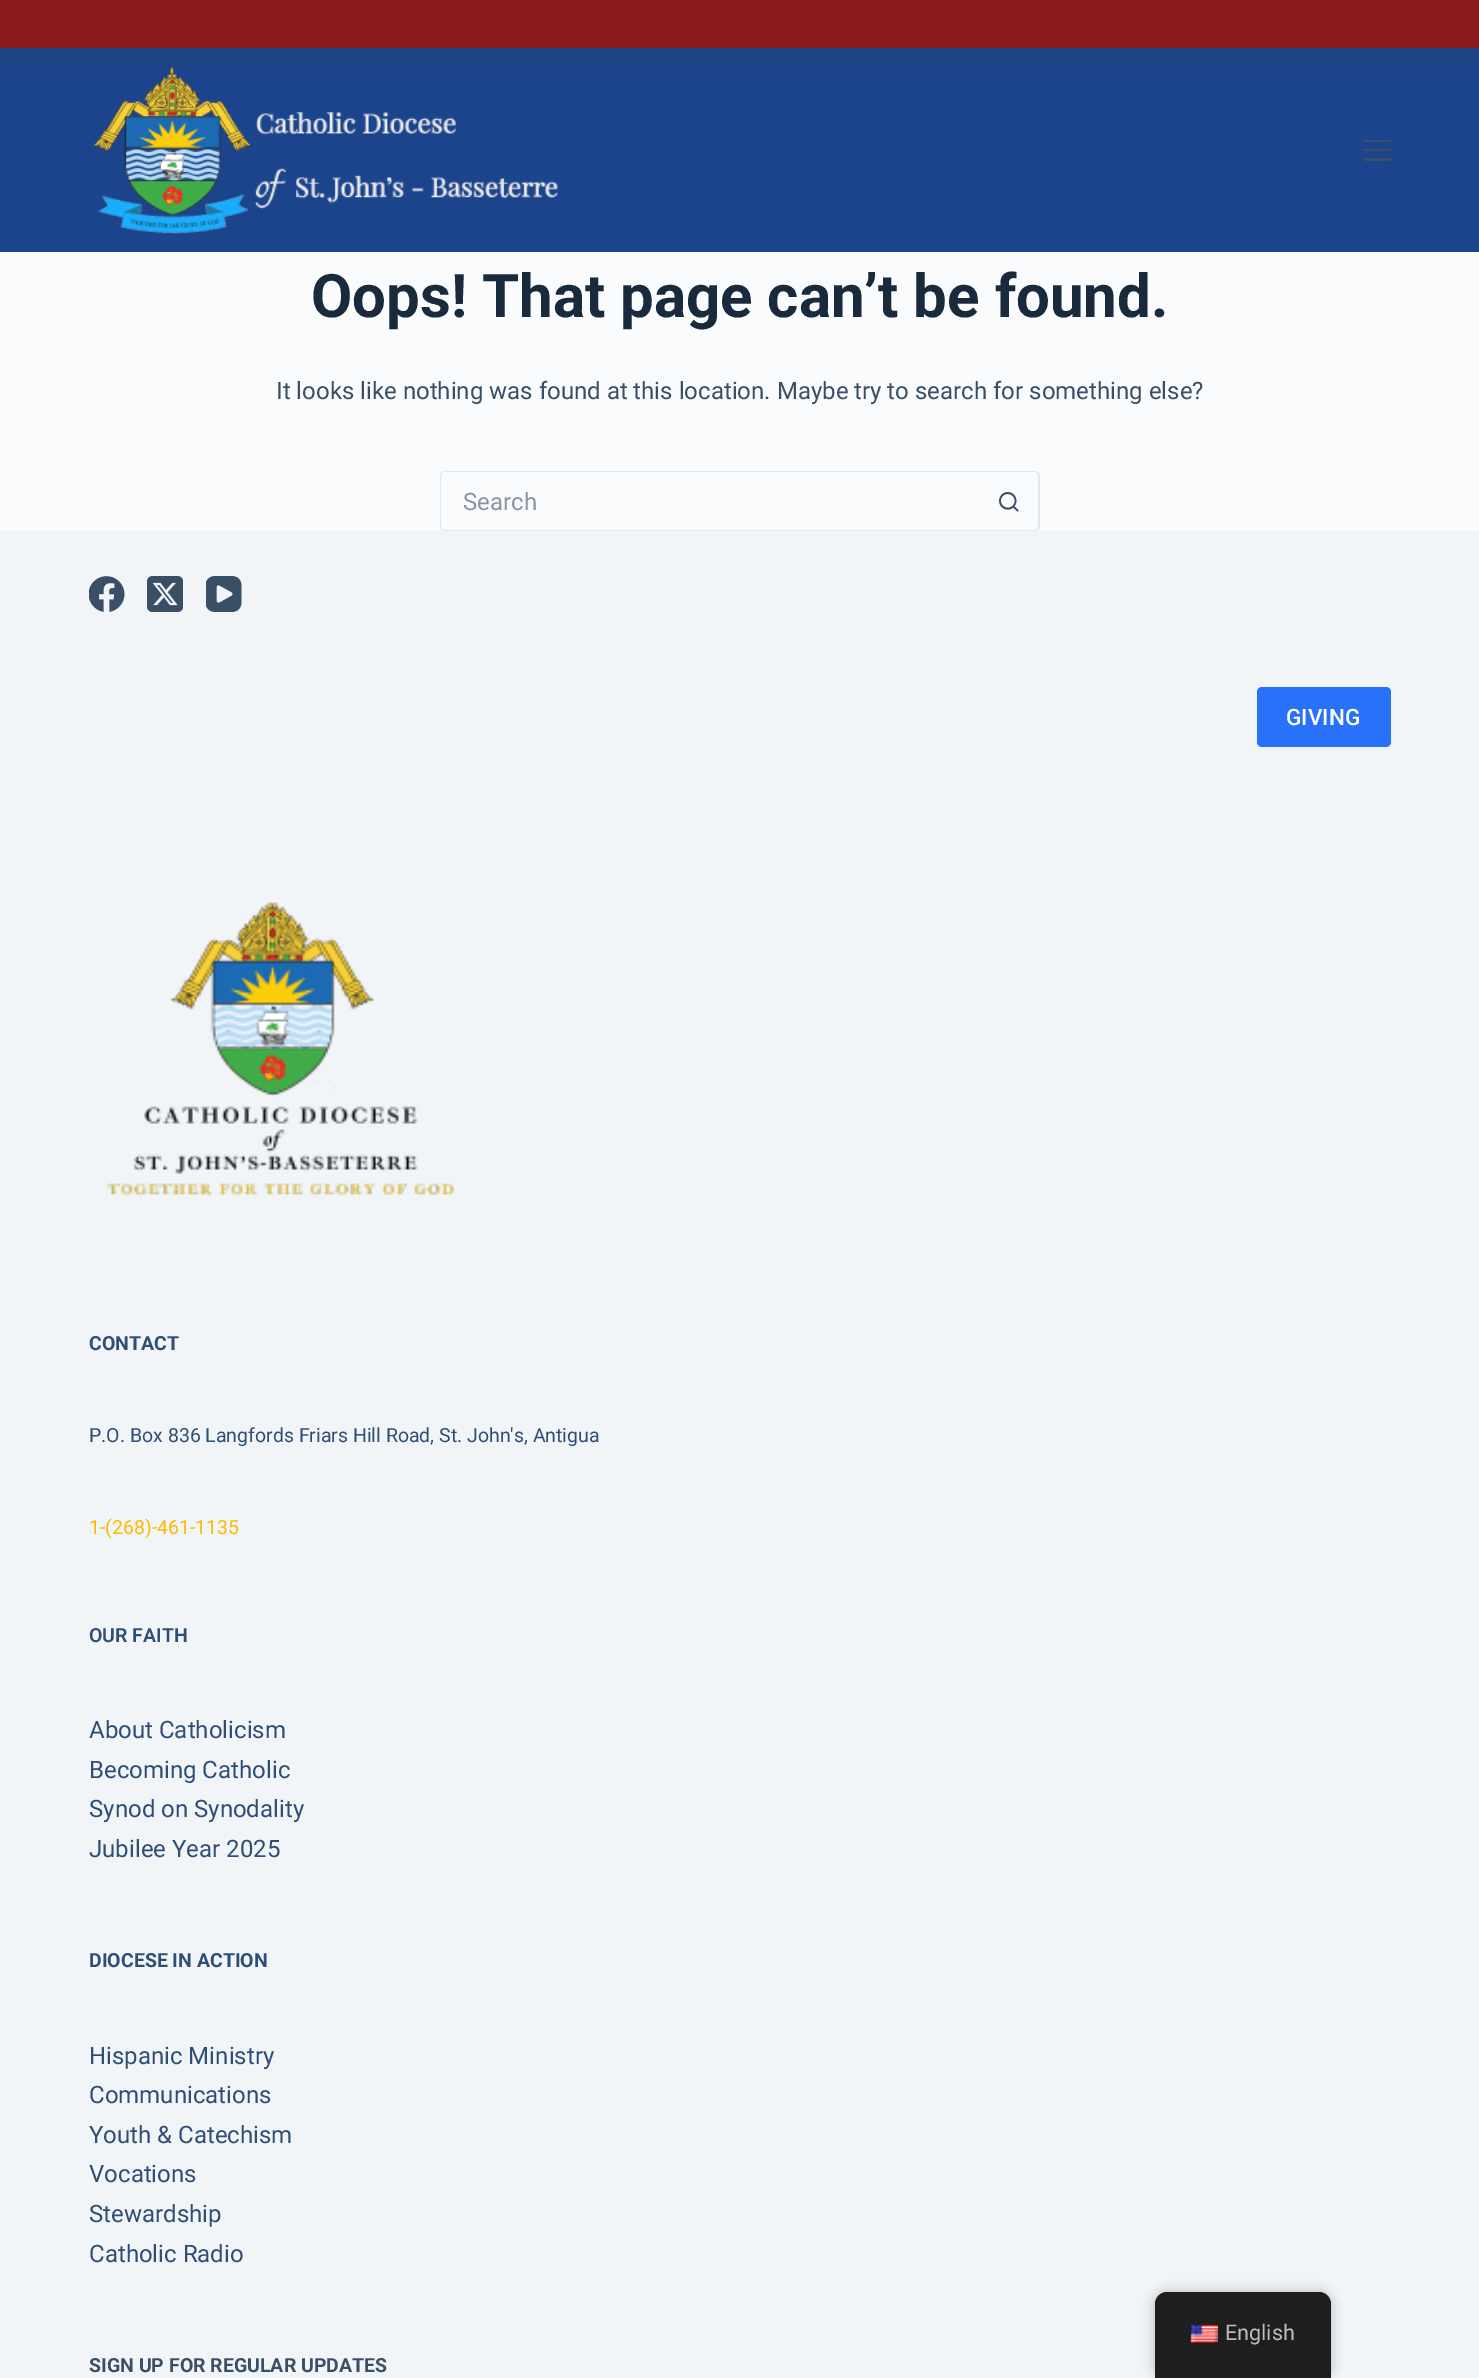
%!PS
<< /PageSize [1479 2378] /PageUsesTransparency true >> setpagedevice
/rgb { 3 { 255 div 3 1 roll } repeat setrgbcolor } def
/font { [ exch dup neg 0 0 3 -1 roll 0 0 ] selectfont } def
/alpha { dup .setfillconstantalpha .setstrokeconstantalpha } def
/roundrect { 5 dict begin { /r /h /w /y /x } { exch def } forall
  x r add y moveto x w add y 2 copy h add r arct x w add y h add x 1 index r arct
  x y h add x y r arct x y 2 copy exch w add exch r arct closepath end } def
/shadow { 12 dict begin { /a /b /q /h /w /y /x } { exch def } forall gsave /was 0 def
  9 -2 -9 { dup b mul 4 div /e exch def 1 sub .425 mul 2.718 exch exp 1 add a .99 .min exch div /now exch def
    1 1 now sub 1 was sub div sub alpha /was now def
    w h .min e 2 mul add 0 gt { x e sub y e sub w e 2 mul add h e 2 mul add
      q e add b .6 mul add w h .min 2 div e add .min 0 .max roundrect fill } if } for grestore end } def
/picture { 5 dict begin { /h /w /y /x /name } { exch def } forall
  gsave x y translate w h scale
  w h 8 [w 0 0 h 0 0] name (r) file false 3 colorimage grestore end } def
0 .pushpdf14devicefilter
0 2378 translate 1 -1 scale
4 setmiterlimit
250 251 252 rgb
0 0 1479 2378 rectfill
28 68 141 rgb
0 48 1479 204 rectfill
(img/1.rgb) 92 65 466 169 picture
43 61 79 rgb
0 15 1479 48 0 15 0.24 shadow
140 28 28 rgb
0 0 1479 48 rectfill
58 79 102 rgb
1364 140 27 2 1 roundrect fill
1364 149 27 2 1 roundrect fill
1364 158 27 3 1.5 roundrect fill
225 232 237 rgb
444 471 moveto 980 471 lineto 980 531 lineto 444 531 lineto 442 531 440 529 440 526 curveto 440 476 lineto 440 473 442 471 444 471 curveto closepath 444 472 moveto 980 472 lineto 980 530 lineto 444 530 lineto 442 530 441 528 441 526 curveto 441 476 lineto 441 474 442 472 444 472 curveto closepath eofill
980 471 moveto 1035 471 lineto 1037 471 1040 473 1040 476 curveto 1040 526 lineto 1040 529 1037 531 1035 531 curveto 980 531 lineto closepath 980 472 moveto 1035 472 lineto 1037 472 1038 474 1038 476 curveto 1038 526 lineto 1038 528 1037 530 1035 530 curveto 980 530 lineto closepath eofill
(img/2.rgb) 999 492 20 20 picture
242 245 247 rgb
0 531 1479 1847 rectfill
(img/3.rgb) 89 576 36 36 picture
(img/4.rgb) 147 576 36 36 picture
(img/5.rgb) 206 576 36 36 picture
40 114 250 rgb
1257 687 134 60 5 roundrect fill
(img/6.rgb) 107 902 348 295 picture
0 0 0 rgb
1155 2292 176 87 12 6 0.25 shadow
30 30 30 rgb
1167 2292 moveto 1319 2292 lineto 1325.5 2292 1331 2297.5 1331 2304 curveto 1331 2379 lineto 1155 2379 lineto 1155 2304 lineto 1155 2297.5 1160.5 2292 1167 2292 curveto closepath fill
(img/7.rgb) 1190 2324 28 19 picture
/Roboto-Bold 60 font
25 42 61 rgb
311 317 moveto (Oops! That page can’t be found.) show
/Roboto-Regular 24 font
58 79 102 rgb
276 399 moveto (It looks like nothing was found at this location. Maybe try to search for something else?) show
135 148 162 rgb
463 510 moveto (Search) show
/Roboto-Medium 22.5 font
255 255 255 rgb
1286 725 moveto (GIVING) show
/Roboto-Bold 19.5 font
46 78 117 rgb
89 1350 moveto (CONTACT) show
/Roboto-Regular 19.5 font
89 1442 moveto (P.O. Box 836 Langfords Friars Hill Road, St. John's, Antigua) show
252 185 0 rgb
89 1534 moveto (1-\(268\)-461-1135) show
/Roboto-SemiBold 19.5 font
46 78 117 rgb
89 1642 moveto (OUR FAITH) show
/Roboto-Regular 24 font
[
  [(About Catholicism) 89 1738]
  [(Becoming Catholic) 89 1778]
  [(Synod on Synodality) 89 1817]
  [(Jubilee Year 2025) 89 1857]
] { aload pop moveto show } forall
/Roboto-Bold 19.5 font
89 1967 moveto (DIOCESE IN ACTION) show
/Roboto-Regular 24 font
[
  [(Hispanic Ministry) 89 2064]
  [(Communications) 89 2103]
  [(Youth & Catechism) 89 2143]
  [(Vocations) 89 2182]
  [(Stewardship) 89 2222]
  [(Catholic Radio) 89 2262]
] { aload pop moveto show } forall
/Roboto-Bold 19.5 font
58 79 102 rgb
89 2372 moveto (SIGN UP FOR REGULAR UPDATES) show
/Roboto-Regular 21.5 font
189 189 189 rgb
1225 2340 moveto (English) show
.poppdf14devicefilter showpage
